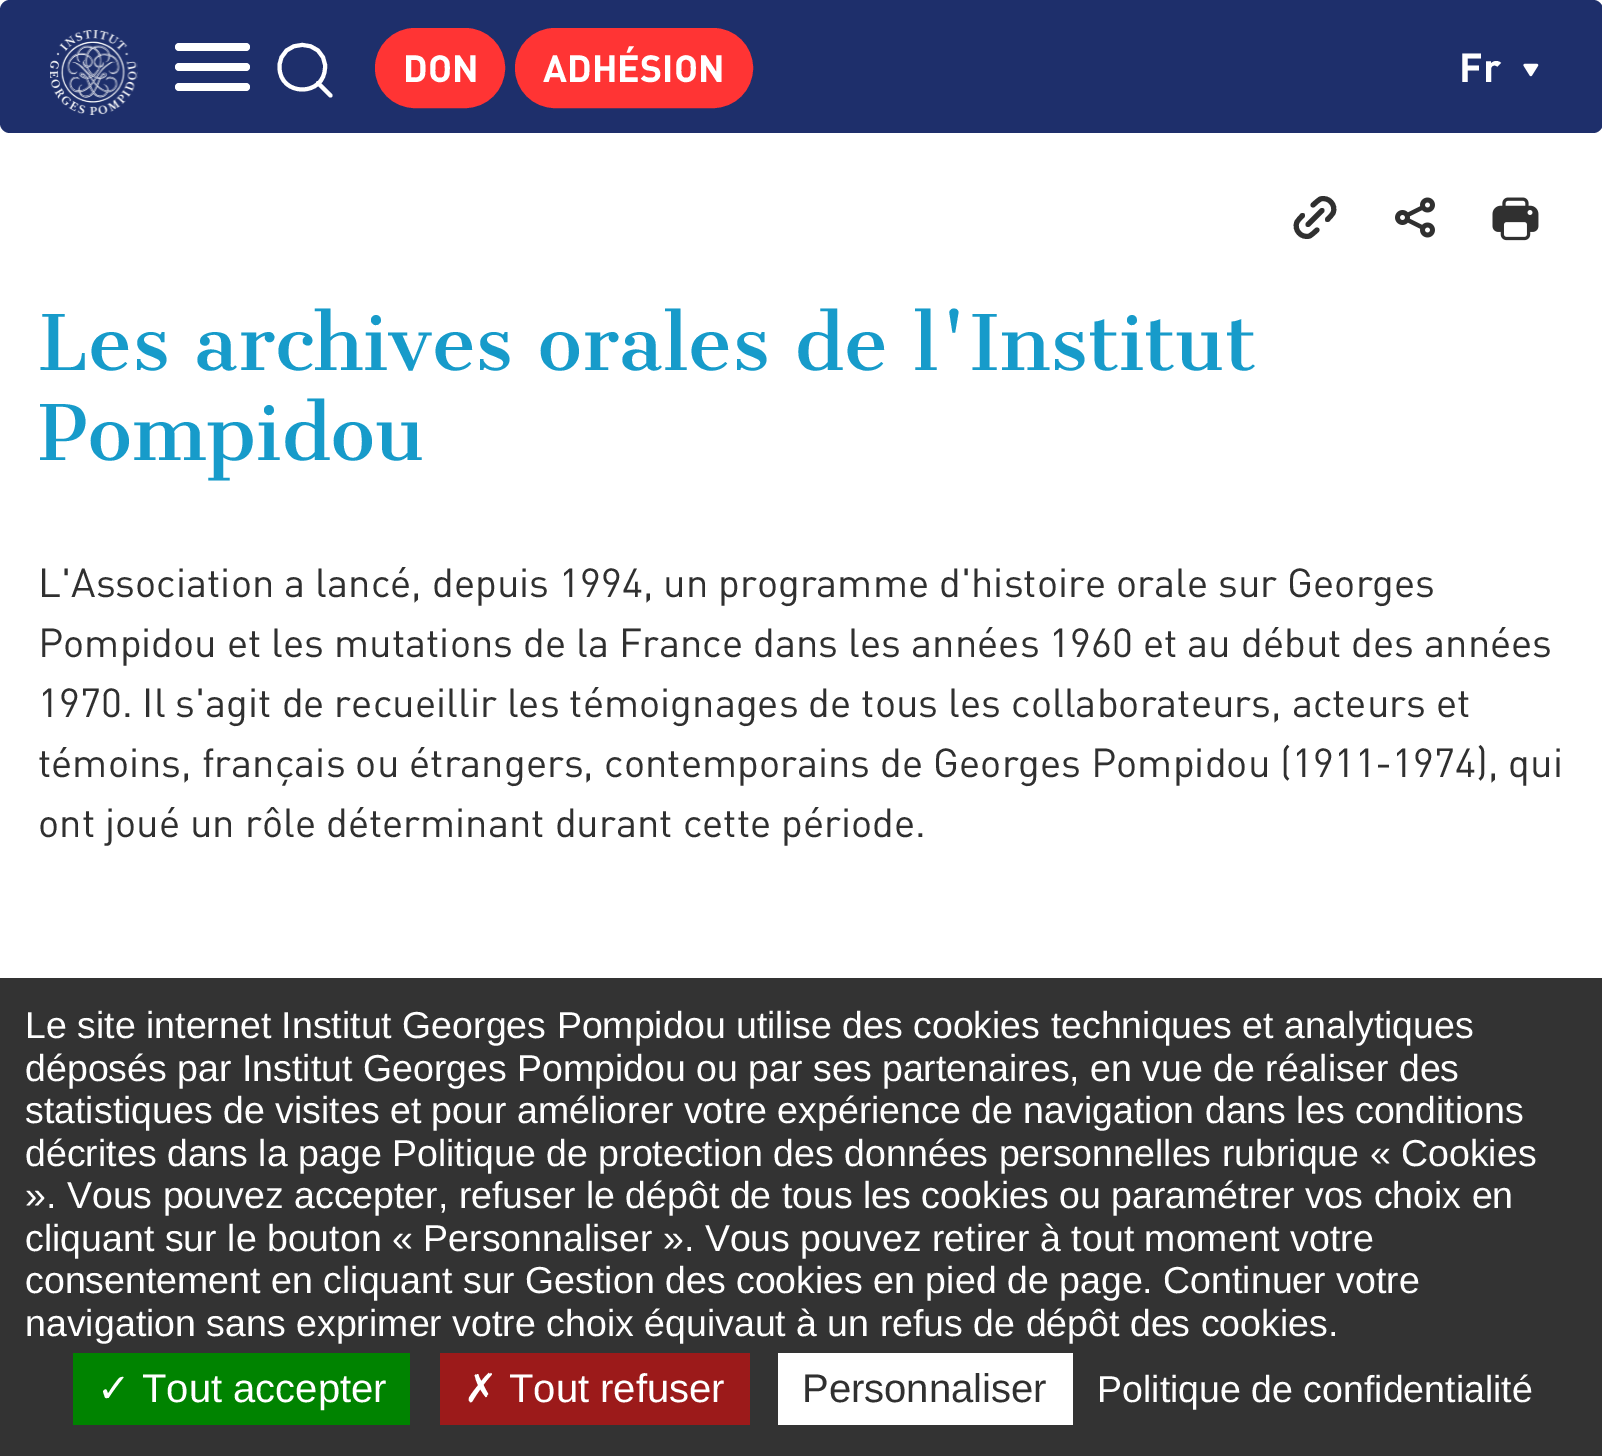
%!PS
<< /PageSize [1602 1456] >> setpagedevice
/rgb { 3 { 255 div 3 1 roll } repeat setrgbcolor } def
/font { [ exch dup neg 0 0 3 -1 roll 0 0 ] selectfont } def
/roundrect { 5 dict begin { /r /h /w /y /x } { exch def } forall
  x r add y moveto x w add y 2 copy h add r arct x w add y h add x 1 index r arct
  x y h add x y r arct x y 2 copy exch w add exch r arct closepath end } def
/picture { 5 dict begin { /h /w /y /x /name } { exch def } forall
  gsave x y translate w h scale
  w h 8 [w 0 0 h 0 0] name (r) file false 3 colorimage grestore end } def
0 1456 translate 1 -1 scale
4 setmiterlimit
255 255 255 rgb
0 0 1602 1456 rectfill
30 47 107 rgb
0 0 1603 133 10 roundrect fill
255 255 255 rgb
175 63 75 8 4 roundrect fill
175 43 75 8 4 roundrect fill
175 83 75 8 4 roundrect fill
4 setlinewidth
1 setlinecap
1 setlinejoin
330.5 95.5 moveto 318 83 lineto 325 67 moveto 325 97 279.5 97 279.5 67 curveto 279.5 37.5 325 37.5 325 67 curveto closepath stroke
(img/1.rgb) 50 30 88 85 picture
255 52 52 rgb
379 32 122 72 36 roundrect gsave fill grestore
8 setlinewidth
0 setlinecap
0 setlinejoin
stroke
519 32 230 72 36 roundrect gsave fill grestore
stroke
(img/2.rgb) 1523 63 16 14 picture
48 48 48 rgb
5 setlinewidth
1 setlinecap
1 setlinejoin
1308 224.5 moveto 1322 210.5 lineto 1302.5 215.5 moveto 1300.5 217.5 1298.5 219.5 1297 222 curveto 1293.5 230 1301.5 238.5 1309.5 236 curveto 1312.5 234.5 1314.5 232 1317 230 curveto 1313 205 moveto 1315.5 203 1317.5 200.5 1320.5 199 curveto 1328.5 196.5 1336.5 205 1333 213 curveto 1331.5 215.5 1329.5 217.5 1327.5 219.5 curveto stroke
(img/3.rgb) 1395 197 40 41 picture
(img/4.rgb) 1492 197 47 44 picture
[
  [0 978 1602 478 51 51 51]
  [73 1353 337 72 0 131 0]
  [440 1353 310 72 156 26 26]
  [778 1353 295 72 255 255 255]
] { aload pop rgb rectfill } forall
/DIN-Bold 37.5 font
403 82 moveto (DON) show
543 82 moveto (ADHÉSION) show
/DIN-Bold 40 font
1459 82 moveto (Fr) show
/CantataOne-Regular 75 font
23 155 202 rgb
38 370 moveto (Les archives orales de l'Institut) show
38 460 moveto (Pompidou) show
/DIN-Regular 40 font
48 48 48 rgb
[
  [(L'Association a lancé, depuis 1994, un programme d'histoire orale sur Georges) 38 597]
  [(Pompidou et les mutations de la France dans les années 1960 et au début des années) 38 657]
  [(1970. Il s'agit de recueillir les témoignages de tous les collaborateurs, acteurs et) 38 717]
  [(témoins, français ou étrangers, contemporains de Georges Pompidou \(1911-1974\), qui) 38 777]
  [(ont joué un rôle déterminant durant cette période.) 38 837]
] { aload pop moveto show } forall
/LiberationSans-Regular 37.5 font
255 255 255 rgb
[
  [(Le site internet Institut Georges Pompidou utilise des cookies techniques et analytiques) 25 1038]
  [(déposés par Institut Georges Pompidou ou par ses partenaires, en vue de réaliser des) 25 1081]
  [(statistiques de visites et pour améliorer votre expérience de navigation dans les conditions) 25 1123]
  [(décrites dans la page Politique de protection des données personnelles rubrique « Cookies) 25 1166]
  [(». Vous pouvez accepter, refuser le dépôt de tous les cookies ou paramétrer vos choix en) 25 1208]
  [(cliquant sur le bouton « Personnaliser ». Vous pouvez retirer à tout moment votre) 25 1251]
  [(consentement en cliquant sur Gestion des cookies en pied de page. Continuer votre) 25 1293]
  [(navigation sans exprimer votre choix équivaut à un refus de dépôt des cookies.) 25 1336]
] { aload pop moveto show } forall
/DejaVuSans-Regular 40 font
97 1402 moveto (✓) show
/LiberationSans-Regular 40 font
142 1402 moveto (Tout accepter) show
/DejaVuSans-Regular 40 font
464 1402 moveto (✗) show
/LiberationSans-Regular 40 font
509 1402 moveto (Tout refuser) show
48 48 48 rgb
802 1402 moveto (Personnaliser) show
/LiberationSans-Regular 37.5 font
255 255 255 rgb
1097 1402 moveto (Politique de confidentialité) show
showpage
